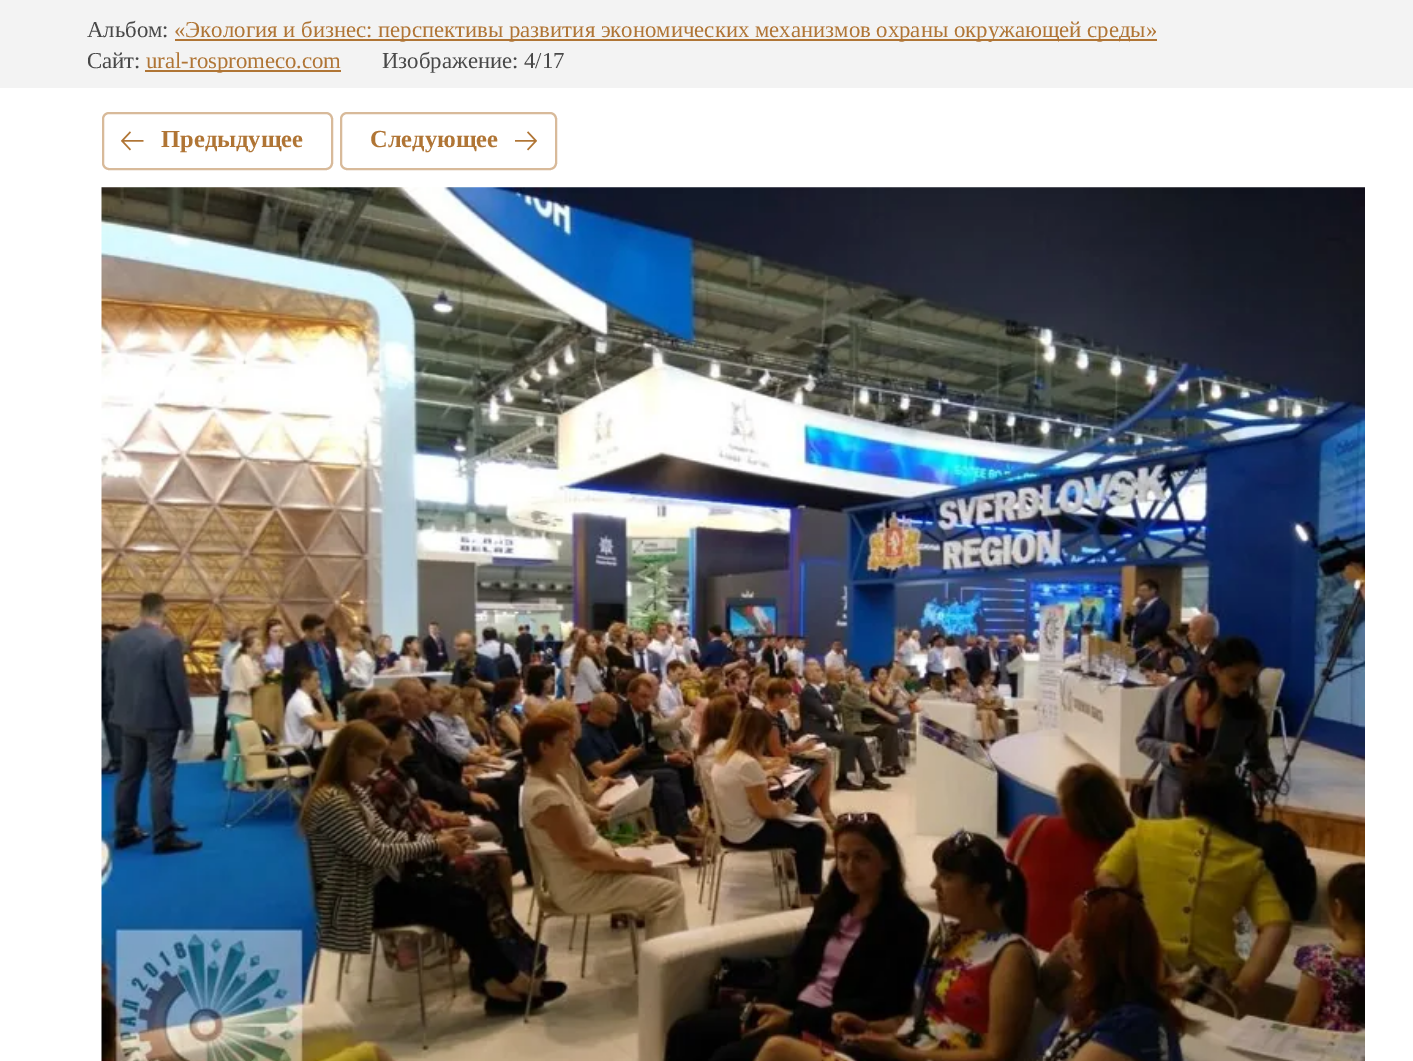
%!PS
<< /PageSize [1413 1061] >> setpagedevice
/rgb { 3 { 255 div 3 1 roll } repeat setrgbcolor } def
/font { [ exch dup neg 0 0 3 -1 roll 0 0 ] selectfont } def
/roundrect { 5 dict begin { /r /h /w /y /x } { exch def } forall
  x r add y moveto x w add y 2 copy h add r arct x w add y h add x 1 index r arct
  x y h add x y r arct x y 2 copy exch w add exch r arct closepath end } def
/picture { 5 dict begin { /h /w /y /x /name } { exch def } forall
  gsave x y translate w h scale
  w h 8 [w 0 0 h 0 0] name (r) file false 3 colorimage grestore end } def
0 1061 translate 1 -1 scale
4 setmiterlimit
255 255 255 rgb
0 0 1413 1061 rectfill
[
  [0 0 1413 88 243 243 243]
  [175 39 982 2 176 117 53]
  [145 70 196 2 176 117 53]
] { aload pop rgb rectfill } forall
216 186 154 rgb
2 setlinewidth
103 113 229 56 6 roundrect stroke
(img/1.rgb) 121 131 23 20 picture
341 113 215 56 6 roundrect stroke
(img/2.rgb) 515 131 22 20 picture
(img/3.rgb) 101 187 1264 874 picture
/LiberationSerif-Regular 22.75 font
72 72 72 rgb
87 37 moveto (Альбом:) show
176 117 53 rgb
174 37 moveto («Экология и бизнес: перспективы развития экономических механизмов охраны окружающей среды») show
72 72 72 rgb
87 68 moveto (Сайт:) show
176 117 53 rgb
146 68 moveto (ural-rospromeco.com) show
72 72 72 rgb
382 68 moveto (Изображение: 4/17) show
/LiberationSerif-Bold 24.5 font
176 117 53 rgb
161 147 moveto (Предыдущее) show
370 147 moveto (Следующее) show
showpage
